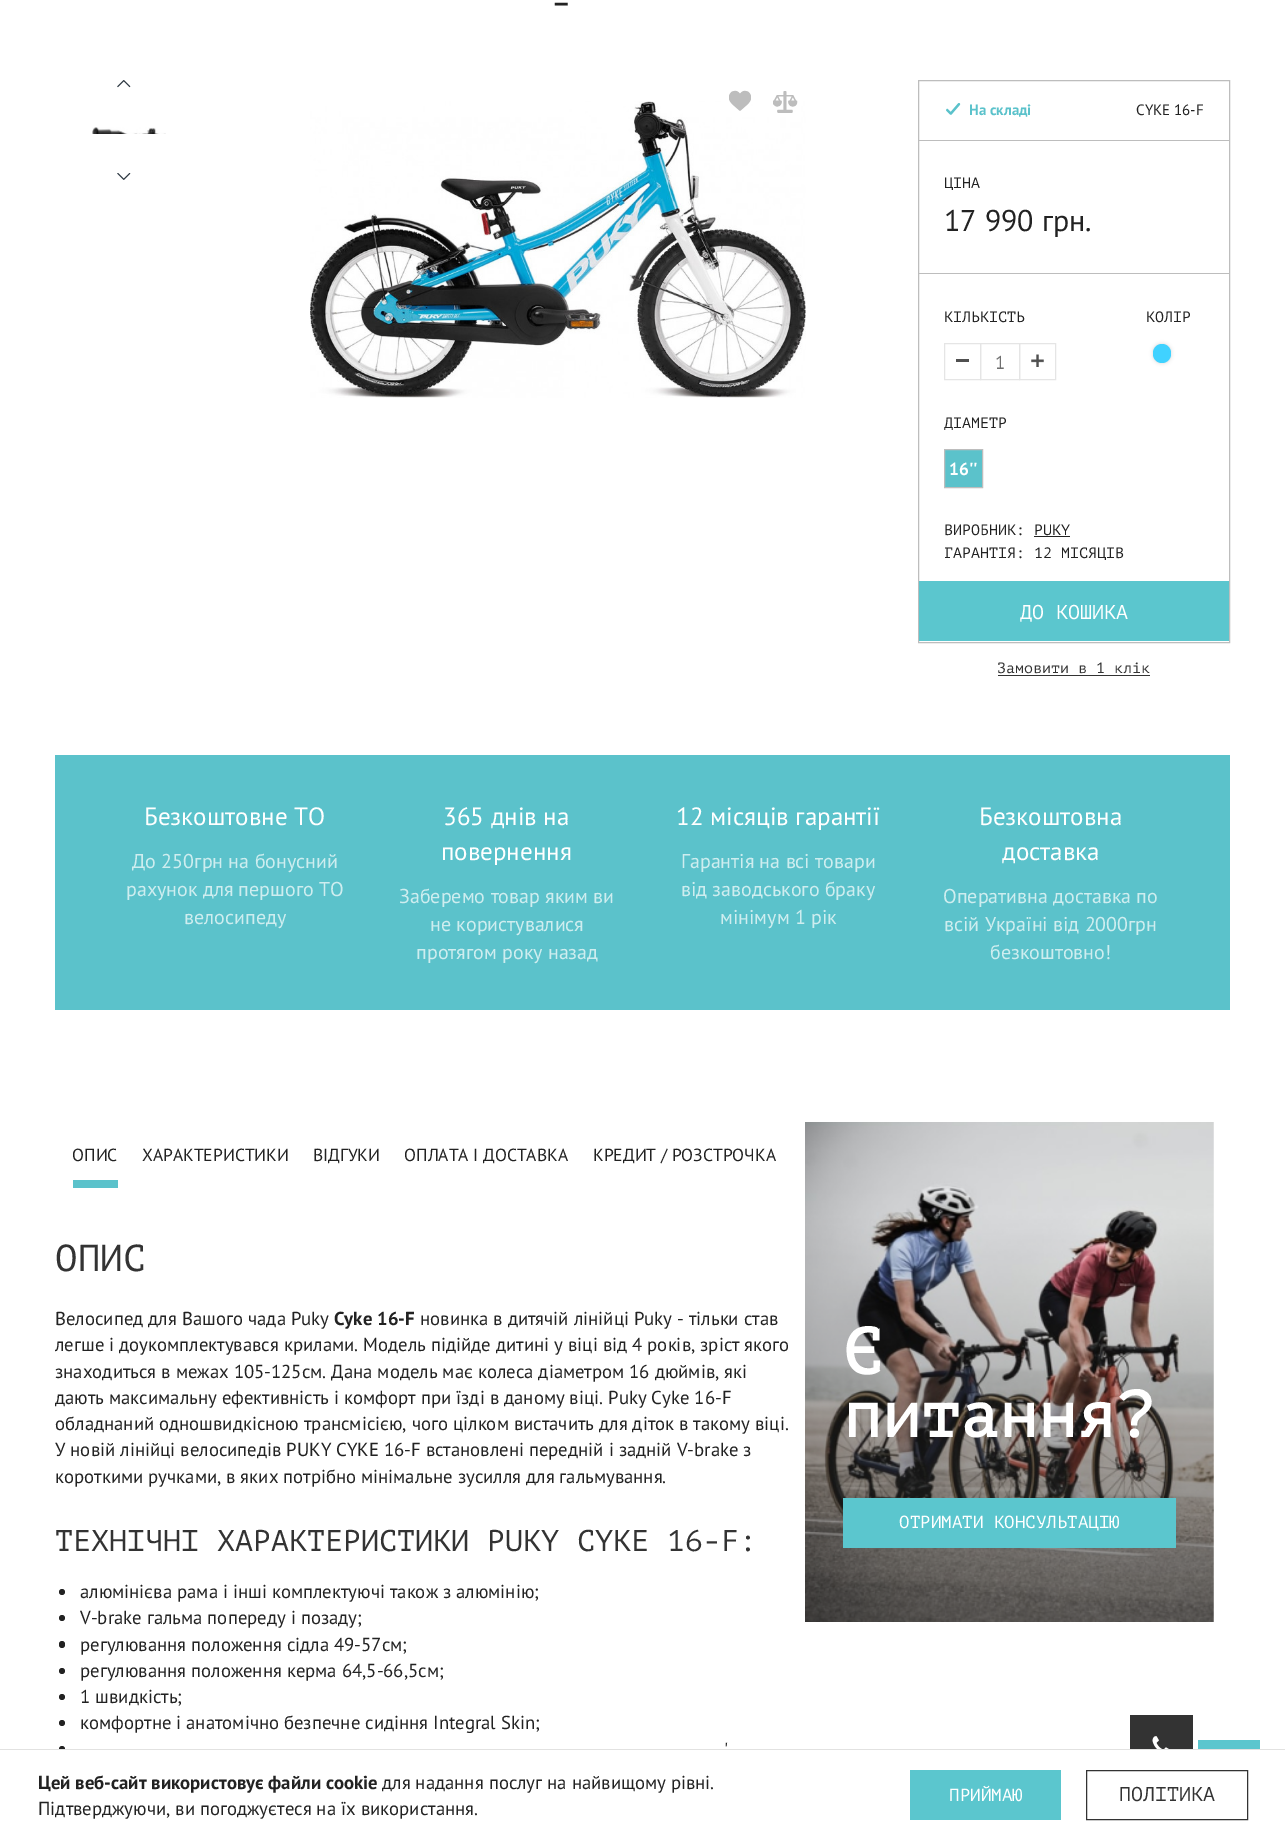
%!PS
<< /PageSize [1285 1839] /PageUsesTransparency true >> setpagedevice
/rgb { 3 { 255 div 3 1 roll } repeat setrgbcolor } def
/font { [ exch dup neg 0 0 3 -1 roll 0 0 ] selectfont } def
/alpha { dup .setfillconstantalpha .setstrokeconstantalpha } def
/circle { newpath 0 360 arc closepath } def
/roundrect { 5 dict begin { /r /h /w /y /x } { exch def } forall
  x r add y moveto x w add y 2 copy h add r arct x w add y h add x 1 index r arct
  x y h add x y r arct x y 2 copy exch w add exch r arct closepath end } def
/shadow { 12 dict begin { /a /b /q /h /w /y /x } { exch def } forall gsave /was 0 def
  9 -2 -9 { dup b mul 4 div /e exch def 1 sub .425 mul 2.718 exch exp 1 add a .99 .min exch div /now exch def
    1 1 now sub 1 was sub div sub alpha /was now def
    w h .min e 2 mul add 0 gt { x e sub y e sub w e 2 mul add h e 2 mul add
      q e add b .6 mul add w h .min 2 div e add .min 0 .max roundrect fill } if } for grestore end } def
/picture { 5 dict begin { /h /w /y /x /name } { exch def } forall
  gsave x y translate w h scale
  w h 8 [w 0 0 h 0 0] name (r) file false 3 colorimage grestore end } def
0 .pushpdf14devicefilter
0 1839 translate 1 -1 scale
4 setmiterlimit
255 255 255 rgb
0 0 1285 1839 rectfill
(img/1.rgb) 117 80 14 8 picture
(img/2.rgb) 92 127 74 7 picture
(img/3.rgb) 117 173 14 7 picture
(img/6.rgb) 310 101 496 297 picture
(img/4.rgb) 729 90 22 21 picture
(img/5.rgb) 773 91 25 22 picture
189 189 189 rgb
918.5 80.5 311 562 rectstroke
919 140 310 1 rectfill
(img/7.rgb) 946 103 15 12 picture
919 273 310 1 rectfill
229 229 229 rgb
944.5 343.5 36 36 rectstroke
80 80 80 rgb
956 359 13 3 rectfill
229 229 229 rgb
1019.5 343.5 36 36 rectstroke
980.5 343.5 39 36 rectstroke
(img/8.rgb) 1031 354 13 13 picture
0 0 0 rgb
1153 344 18 19 9 2 0.15 shadow
64 210 255 rgb
1153 344 18 19 9 roundrect fill
91 194 203 rgb
944.5 449.5 moveto 982.5 449.5 lineto 982.5 487.5 lineto 944.5 487.5 lineto closepath gsave fill grestore
189 189 189 rgb
stroke
[
  [1034 536 36 1 34 34 34]
  [919 581 310 60 91 198 206]
  [998 675 152 1 51 51 51]
  [55 755 1175 255 91 194 203]
  [73 1180 45 8 91 194 203]
] { aload pop rgb rectfill } forall
34 34 34 rgb
62 1592 3 circle fill
62 1618 3 circle fill
59 1641 6 7 3 roundrect fill
62 1671 3 circle fill
62 1697 3 circle fill
62 1723 3 circle fill
59 1746 6 7 3 roundrect fill
(img/9.rgb) 805 1122 409 500 picture
91 198 206 rgb
843 1498 333 50 rectfill
51 51 51 rgb
1130 1715 63 34 rectfill
(img/10.rgb) 1152 1736 17 13 picture
[
  [1198 1740 62 9 91 198 206]
  [59 1750 6 3 255 255 255]
  [0 1749 1285 1 226 226 225]
  [910 1770 151 50 91 198 206]
] { aload pop rgb rectfill } forall
51 51 51 rgb
1086.5 1770.5 161 49 rectstroke
/PTMono-Regular 37.5 font
34 34 34 rgb
550 15 moveto (-) show
/PTSans-Bold 15 font
91 194 203 rgb
969 115 moveto (На складі) show
/PTSans-Regular 15 font
34 34 34 rgb
1136 115 moveto (CYKE 16-F) show
/PTMono-Regular 15 font
944 188 moveto (ЦІНА) show
/PTSans-Regular 30 font
944 231 moveto (17 990 грн.) show
/PTMono-Regular 15 font
944 322 moveto (КІЛЬКІСТЬ) show
/PTSans-Regular 18.75 font
111 111 111 rgb
995 369 moveto (1) show
/PTMono-Regular 15 font
34 34 34 rgb
1146 322 moveto (КОЛІР) show
944 428 moveto (ДIАМЕТР) show
/PTSans-Bold 17.5 font
255 255 255 rgb
949 475 moveto (16'') show
/PTMono-Regular 15 font
34 34 34 rgb
944 535 moveto (ВИРОБНИК: PUKY) show
944 558 moveto (ГАРАНТІЯ: 12 МІСЯЦІВ) show
/PTMono-Regular 20 font
255 255 255 rgb
1020 619 moveto (ДО КОШИКА) show
/PTMono-Regular 15 font
51 51 51 rgb
997 673 moveto (Замовити в 1 клік) show
/PTSans-Regular 25 font
255 255 255 rgb
144 825 moveto (Безкоштовне ТО) show
/PTSans-Regular 20 font
206 237 239 rgb
[
  [(До 250грн на бонусний) 132 868]
  [(рахунок для першого ТО) 126 896]
  [(велосипеду) 184 924]
] { aload pop moveto show } forall
/PTSans-Regular 25 font
255 255 255 rgb
443 825 moveto (365 днів на) show
441 860 moveto (повернення) show
/PTSans-Regular 20 font
206 237 239 rgb
[
  [(Заберемо товар яким ви) 399 903]
  [(не користувалися) 430 931]
  [(протягом року назад) 416 959]
] { aload pop moveto show } forall
/PTSans-Regular 25 font
255 255 255 rgb
676 825 moveto (12 місяців гарантії) show
/PTSans-Regular 20 font
206 237 239 rgb
[
  [(Гарантія на всі товари) 681 868]
  [(від заводського браку) 681 896]
  [(мінімум 1 рік) 720 924]
] { aload pop moveto show } forall
/PTSans-Regular 25 font
255 255 255 rgb
979 825 moveto (Безкоштовна) show
1002 860 moveto (доставка) show
/PTSans-Regular 20 font
206 237 239 rgb
[
  [(Оперативна доставка по) 943 903]
  [(всій Україні від 2000грн) 944 931]
  [(безкоштовно!) 990 959]
] { aload pop moveto show } forall
/PTSans-Regular 17.5 font
34 34 34 rgb
[
  [(ОПИС) 72 1161]
  [(ХАРАКТЕРИСТИКИ) 142 1161]
  [(ВІДГУКИ) 313 1161]
  [(ОПЛАТА І ДОСТАВКА) 404 1161]
  [(КРЕДИТ / РОЗСТРОЧКА) 593 1161]
] { aload pop moveto show } forall
/PTMono-Regular 37.5 font
51 51 51 rgb
55 1271 moveto (ОПИС) show
/PTSans-Regular 18.75 font
34 34 34 rgb
55 1325 moveto (Велосипед для Вашого чада Puky) show
/PTSans-Bold 18.75 font
334 1325 moveto (Cyke 16-F) show
/PTSans-Regular 18.75 font
[
  [(новинка в дитячій лінійці Puky - тільки став) 420 1325]
  [(легше і доукомплектувався крилами. Модель підійде дитині у віці від 4 років, зріст якого) 55 1351]
  [(знаходиться в межах 105-125см. Дана модель має колеса діаметром 16 дюймів, які) 55 1378]
  [(дають максимальну ефективність і комфорт при їзді в даному віці. Puky Cyke 16-F) 55 1404]
  [(обладнаний одношвидкісною трансмісією, чого цілком вистачить для діток в такому віці.) 55 1430]
  [(У новій лінійці велосипедів PUKY CYKE 16-F встановлені передній і задній V-brake з) 55 1456]
  [(короткими ручками, в яких потрібно мінімальне зусилля для гальмування.) 55 1483]
] { aload pop moveto show } forall
/PTMono-Regular 30 font
51 51 51 rgb
55 1551 moveto (ТЕХНІЧНІ ХАРАКТЕРИСТИКИ PUKY CYKE 16-F:) show
/PTSans-Regular 18.75 font
34 34 34 rgb
[
  [(алюмінієва рама і інші комплектуючі також з алюмінію;) 80 1598]
  [(V-brake гальма попереду і позаду;) 80 1624]
  [(регулювання положення сідла 49-57см;) 80 1651]
  [(регулювання положення керма 64,5-66,5см;) 80 1677]
  [(1 швидкість;) 80 1703]
  [(комфортне і анатомічно безпечне сидіння Integral Skin;) 80 1729]
  [(') 724 1756]
] { aload pop moveto show } forall
/PTMono-Bold 65 font
255 255 255 rgb
843 1374 moveto (Є) show
843 1437 moveto (питання?) show
/PTMono-Regular 17.5 font
899 1528 moveto (ОТРИМАТИ КОНСУЛЬТАЦІЮ) show
/PTSans-Bold 18.75 font
34 34 34 rgb
38 1789 moveto (Цей веб-сайт використовує файли cookie) show
/PTSans-Regular 18.75 font
382 1789 moveto (для надання послуг на найвищому рівні.) show
38 1815 moveto (Підтверджуючи, ви погоджуєтеся на їх використання.) show
/PTMono-Regular 17.5 font
255 255 255 rgb
949 1801 moveto (ПРИЙМАЮ) show
/PTMono-Regular 20 font
51 51 51 rgb
1119 1801 moveto (ПОЛІТИКА) show
.poppdf14devicefilter showpage
